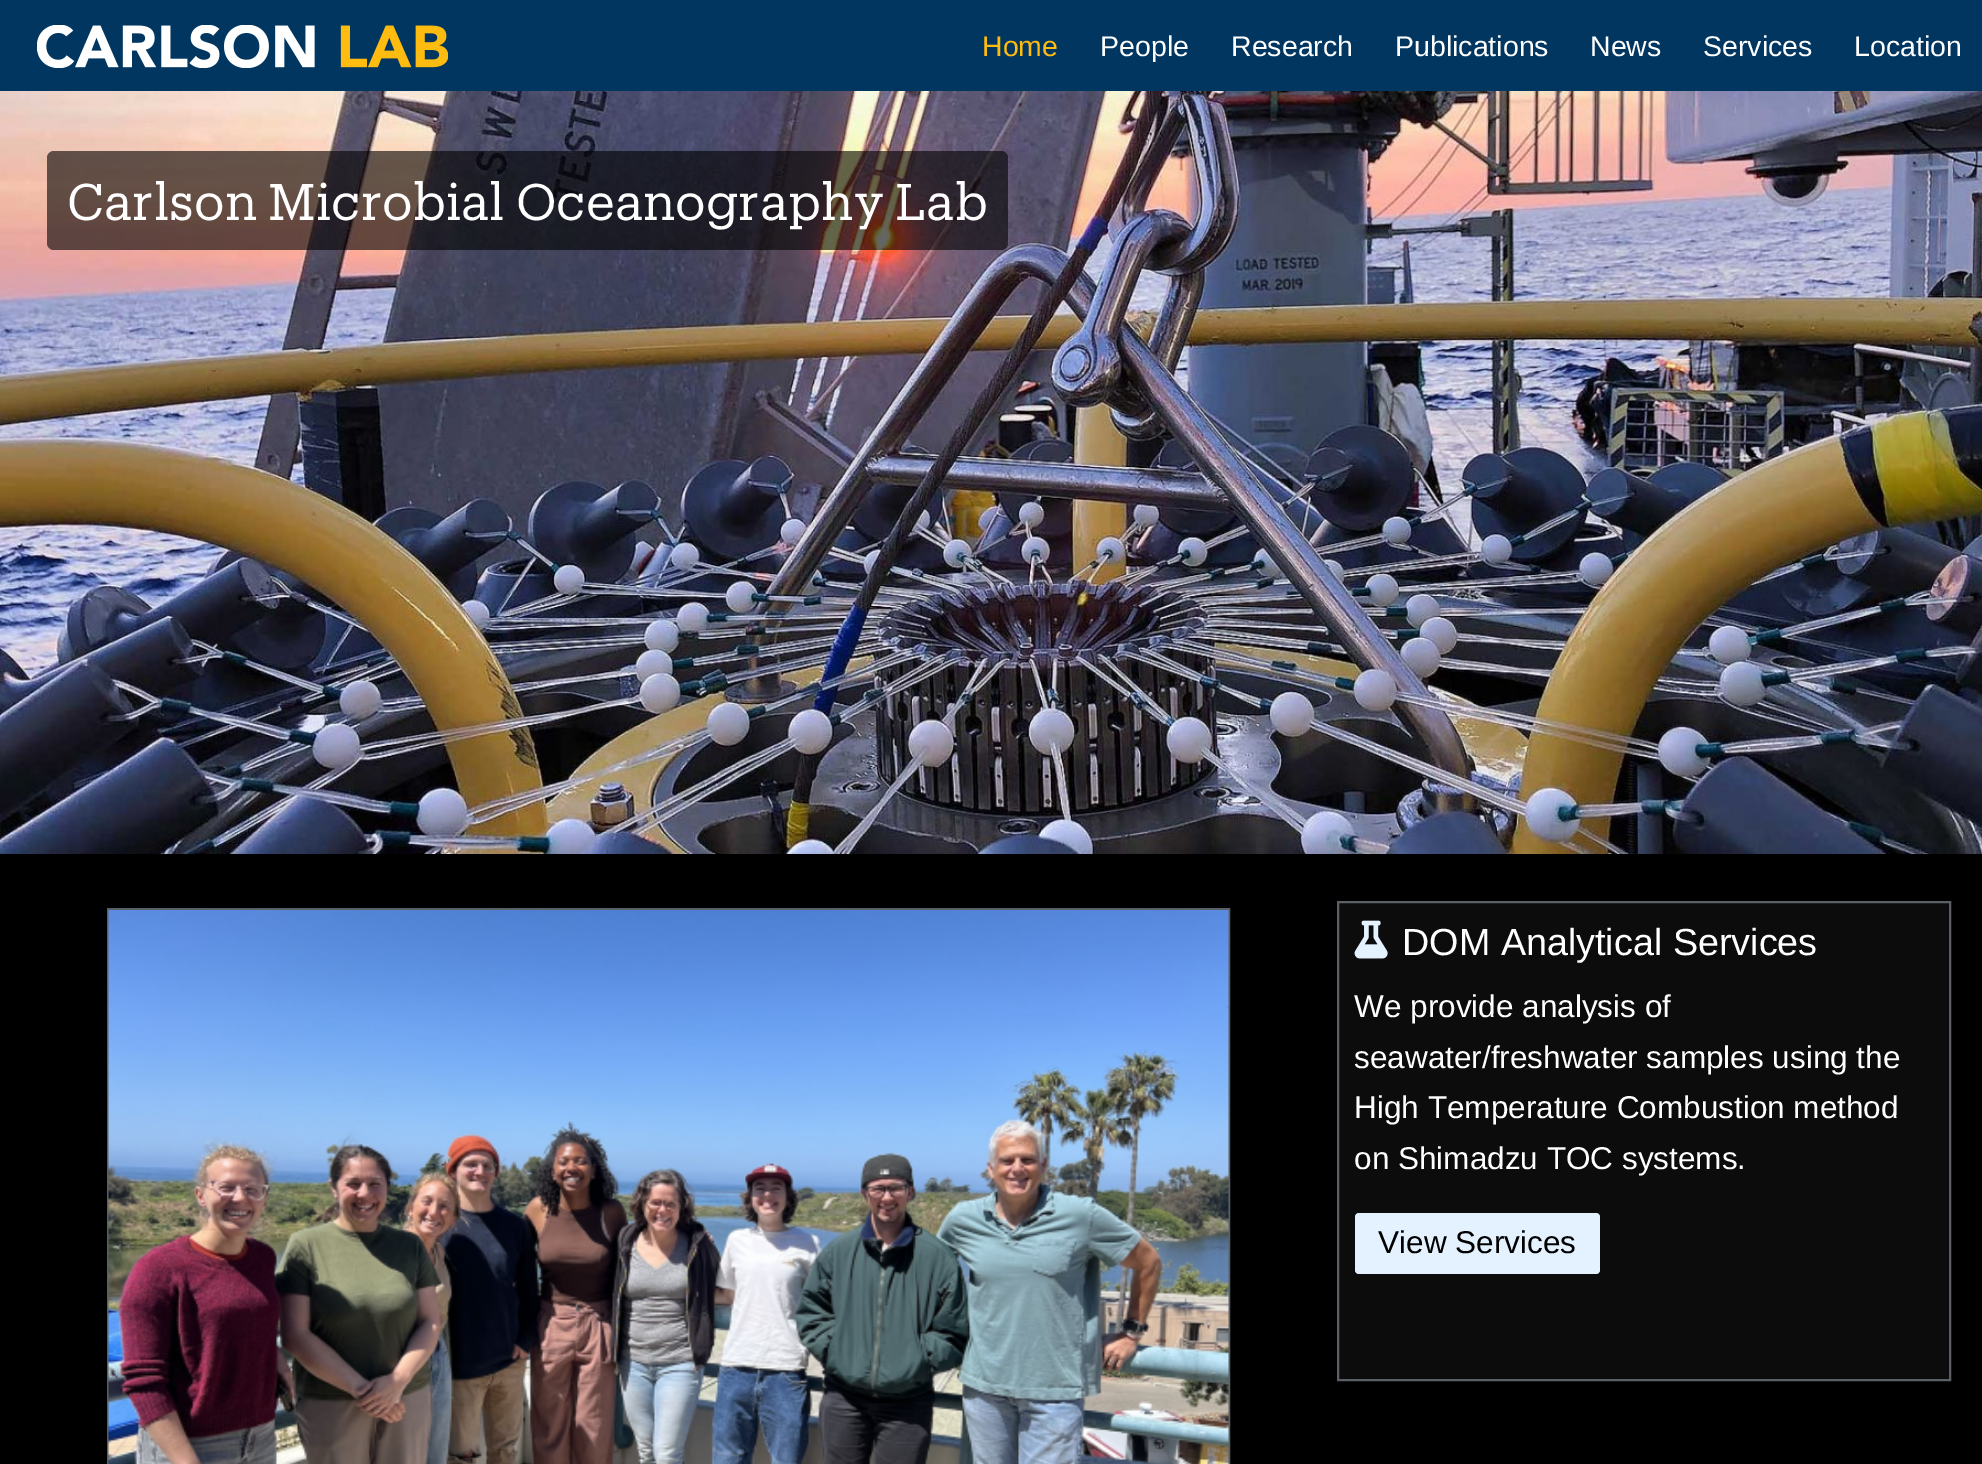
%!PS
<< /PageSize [1982 1464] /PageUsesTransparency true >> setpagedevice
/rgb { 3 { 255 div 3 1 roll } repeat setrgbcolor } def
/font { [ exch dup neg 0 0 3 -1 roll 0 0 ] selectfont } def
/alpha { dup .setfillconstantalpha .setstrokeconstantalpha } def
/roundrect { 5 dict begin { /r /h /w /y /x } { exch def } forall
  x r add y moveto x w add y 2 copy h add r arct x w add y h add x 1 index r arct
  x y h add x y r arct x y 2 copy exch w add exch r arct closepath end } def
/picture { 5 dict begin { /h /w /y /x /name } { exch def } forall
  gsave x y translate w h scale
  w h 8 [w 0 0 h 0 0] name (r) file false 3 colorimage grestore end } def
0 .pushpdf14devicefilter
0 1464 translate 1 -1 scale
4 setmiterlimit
0 0 0 rgb
0 0 1982 1464 rectfill
0 54 96 rgb
0 0 1982 91 rectfill
(img/1.rgb) 37 25 411 43 picture
(img/2.rgb) 0 91 1982 763 picture
0.6 alpha
0 0 0 rgb
47 151 961 99 7 roundrect fill
1 alpha
91 96 102 rgb
2 setlinewidth
108 909 1121 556 rectstroke
(img/3.rgb) 108 910 1121 554 picture
12 12 13 rgb
1338 902 moveto 1950 902 lineto 1950 1380 lineto 1338 1380 lineto closepath gsave fill grestore
91 96 102 rgb
stroke
(img/4.rgb) 1354 920 34 39 picture
228 241 254 rgb
1355 1213 245 61 4 roundrect fill
/LiberationSans-Regular 28.5 font
254 188 17 rgb
982 56 moveto (Home) show
255 255 255 rgb
[
  [(People) 1100 56]
  [(Research) 1231 56]
  [(Publications) 1395 56]
  [(News) 1590 56]
  [(Services) 1703 56]
  [(Location) 1854 56]
] { aload pop moveto show } forall
/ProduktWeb-Regular 50.4 font
67 220 moveto (Carlson Microbial Oceanography Lab) show
/LiberationSans-Regular 37.75 font
1402 955 moveto (DOM Analytical Services) show
/LiberationSans-Regular 31.5 font
[
  [(We provide analysis of) 1354 1017]
  [(seawater/freshwater samples using the) 1354 1068]
  [(High Temperature Combustion method) 1354 1118]
  [(on Shimadzu TOC systems.) 1354 1169]
] { aload pop moveto show } forall
0 0 0 rgb
1378 1253 moveto (View Services) show
.poppdf14devicefilter showpage
